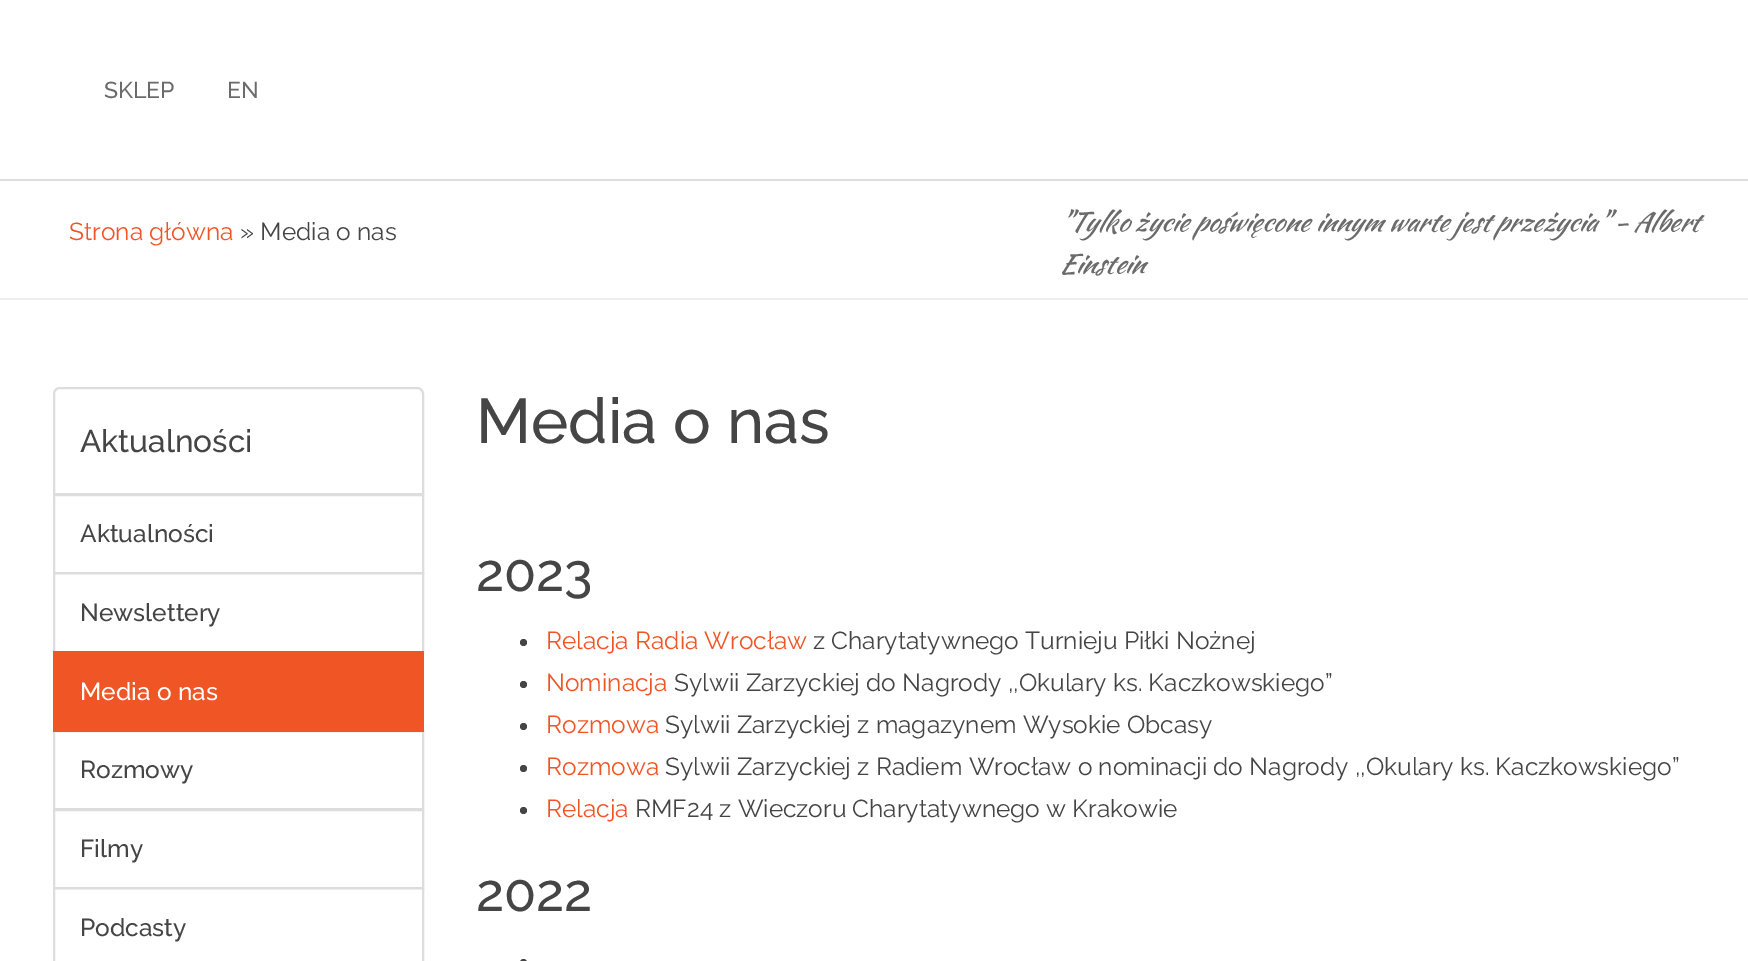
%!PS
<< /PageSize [1748 961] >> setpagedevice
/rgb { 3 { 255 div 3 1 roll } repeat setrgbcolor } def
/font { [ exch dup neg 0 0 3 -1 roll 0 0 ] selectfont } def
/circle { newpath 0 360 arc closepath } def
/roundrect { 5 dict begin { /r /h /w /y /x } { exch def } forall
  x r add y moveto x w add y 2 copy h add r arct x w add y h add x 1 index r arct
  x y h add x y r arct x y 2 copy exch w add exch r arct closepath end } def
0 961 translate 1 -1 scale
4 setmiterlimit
255 255 255 rgb
0 0 1748 961 rectfill
221 221 221 rgb
0 179 1748 2 rectfill
238 238 238 rgb
0 298 1748 2 rectfill
221 221 221 rgb
2 setlinewidth
60 388 moveto 417 388 lineto 420.5 388 423 390.5 423 394 curveto 423 494 lineto 54 494 lineto 54 394 lineto 54 390.5 56.5 388 60 388 curveto closepath stroke
54 495 369 78 rectstroke
54 573 369 79 rectstroke
54 731 369 78 rectstroke
240 85 38 rgb
53 651 371 81 rectfill
221 221 221 rgb
54 810 369 78 rectstroke
54 888 369 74 rectstroke
69 69 69 rgb
523.5 642.5 3.5 circle fill
523.5 684.5 3.5 circle fill
523.5 726.5 3.5 circle fill
523.5 768.5 3.5 circle fill
523.5 810.5 3.5 circle fill
520 959 7 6 3.5 roundrect fill
/Raleway-Thin 23 font
107 107 107 rgb
104 98 moveto (SKLEP) show
227 98 moveto (EN) show
/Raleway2-Thin 24.5 font
240 85 38 rgb
69 240 moveto (Strona główna) show
69 69 69 rgb
240 240 moveto (» Media o nas) show
/KaushanScript-Italic 26.25 font
107 107 107 rgb
1059 231 moveto ("Tylko życie poświęcone innym warte jest przeżycia" - Albert) show
1059 273 moveto (Einstein) show
/Raleway-Thin 31.5 font
69 69 69 rgb
80 452 moveto (Aktualności) show
/Raleway-Thin 24.5 font
80 542 moveto (Aktualności) show
80 621 moveto (Newslettery) show
255 255 255 rgb
80 700 moveto (Media o nas) show
69 69 69 rgb
[
  [(Rozmowy) 80 778]
  [(Filmy) 80 857]
  [(Podcasty) 80 936]
] { aload pop moveto show } forall
/Raleway-Thin 63 font
476 443 moveto (Media o nas) show
/Raleway-Thin 52.5 font
476 591 moveto (2023) show
/Raleway2-Thin 24.5 font
240 85 38 rgb
546 649 moveto (Relacja Radia Wrocław) show
69 69 69 rgb
813 649 moveto (z Charytatywnego Turnieju Piłki Nożnej) show
240 85 38 rgb
546 691 moveto (Nominacja) show
69 69 69 rgb
674 691 moveto (Sylwii Zarzyckiej do Nagrody ,,Okulary ks. Kaczkowskiego”) show
240 85 38 rgb
546 733 moveto (Rozmowa) show
69 69 69 rgb
665 733 moveto (Sylwii Zarzyckiej z magazynem Wysokie Obcasy) show
240 85 38 rgb
546 775 moveto (Rozmowa) show
69 69 69 rgb
665 775 moveto (Sylwii Zarzyckiej z Radiem Wrocław o nominacji do Nagrody ,,Okulary ks. Kaczkowskiego”) show
240 85 38 rgb
546 817 moveto (Relacja) show
69 69 69 rgb
635 817 moveto (RMF24 z Wieczoru Charytatywnego w Krakowie) show
/Raleway-Thin 52.5 font
476 911 moveto (2022) show
showpage
